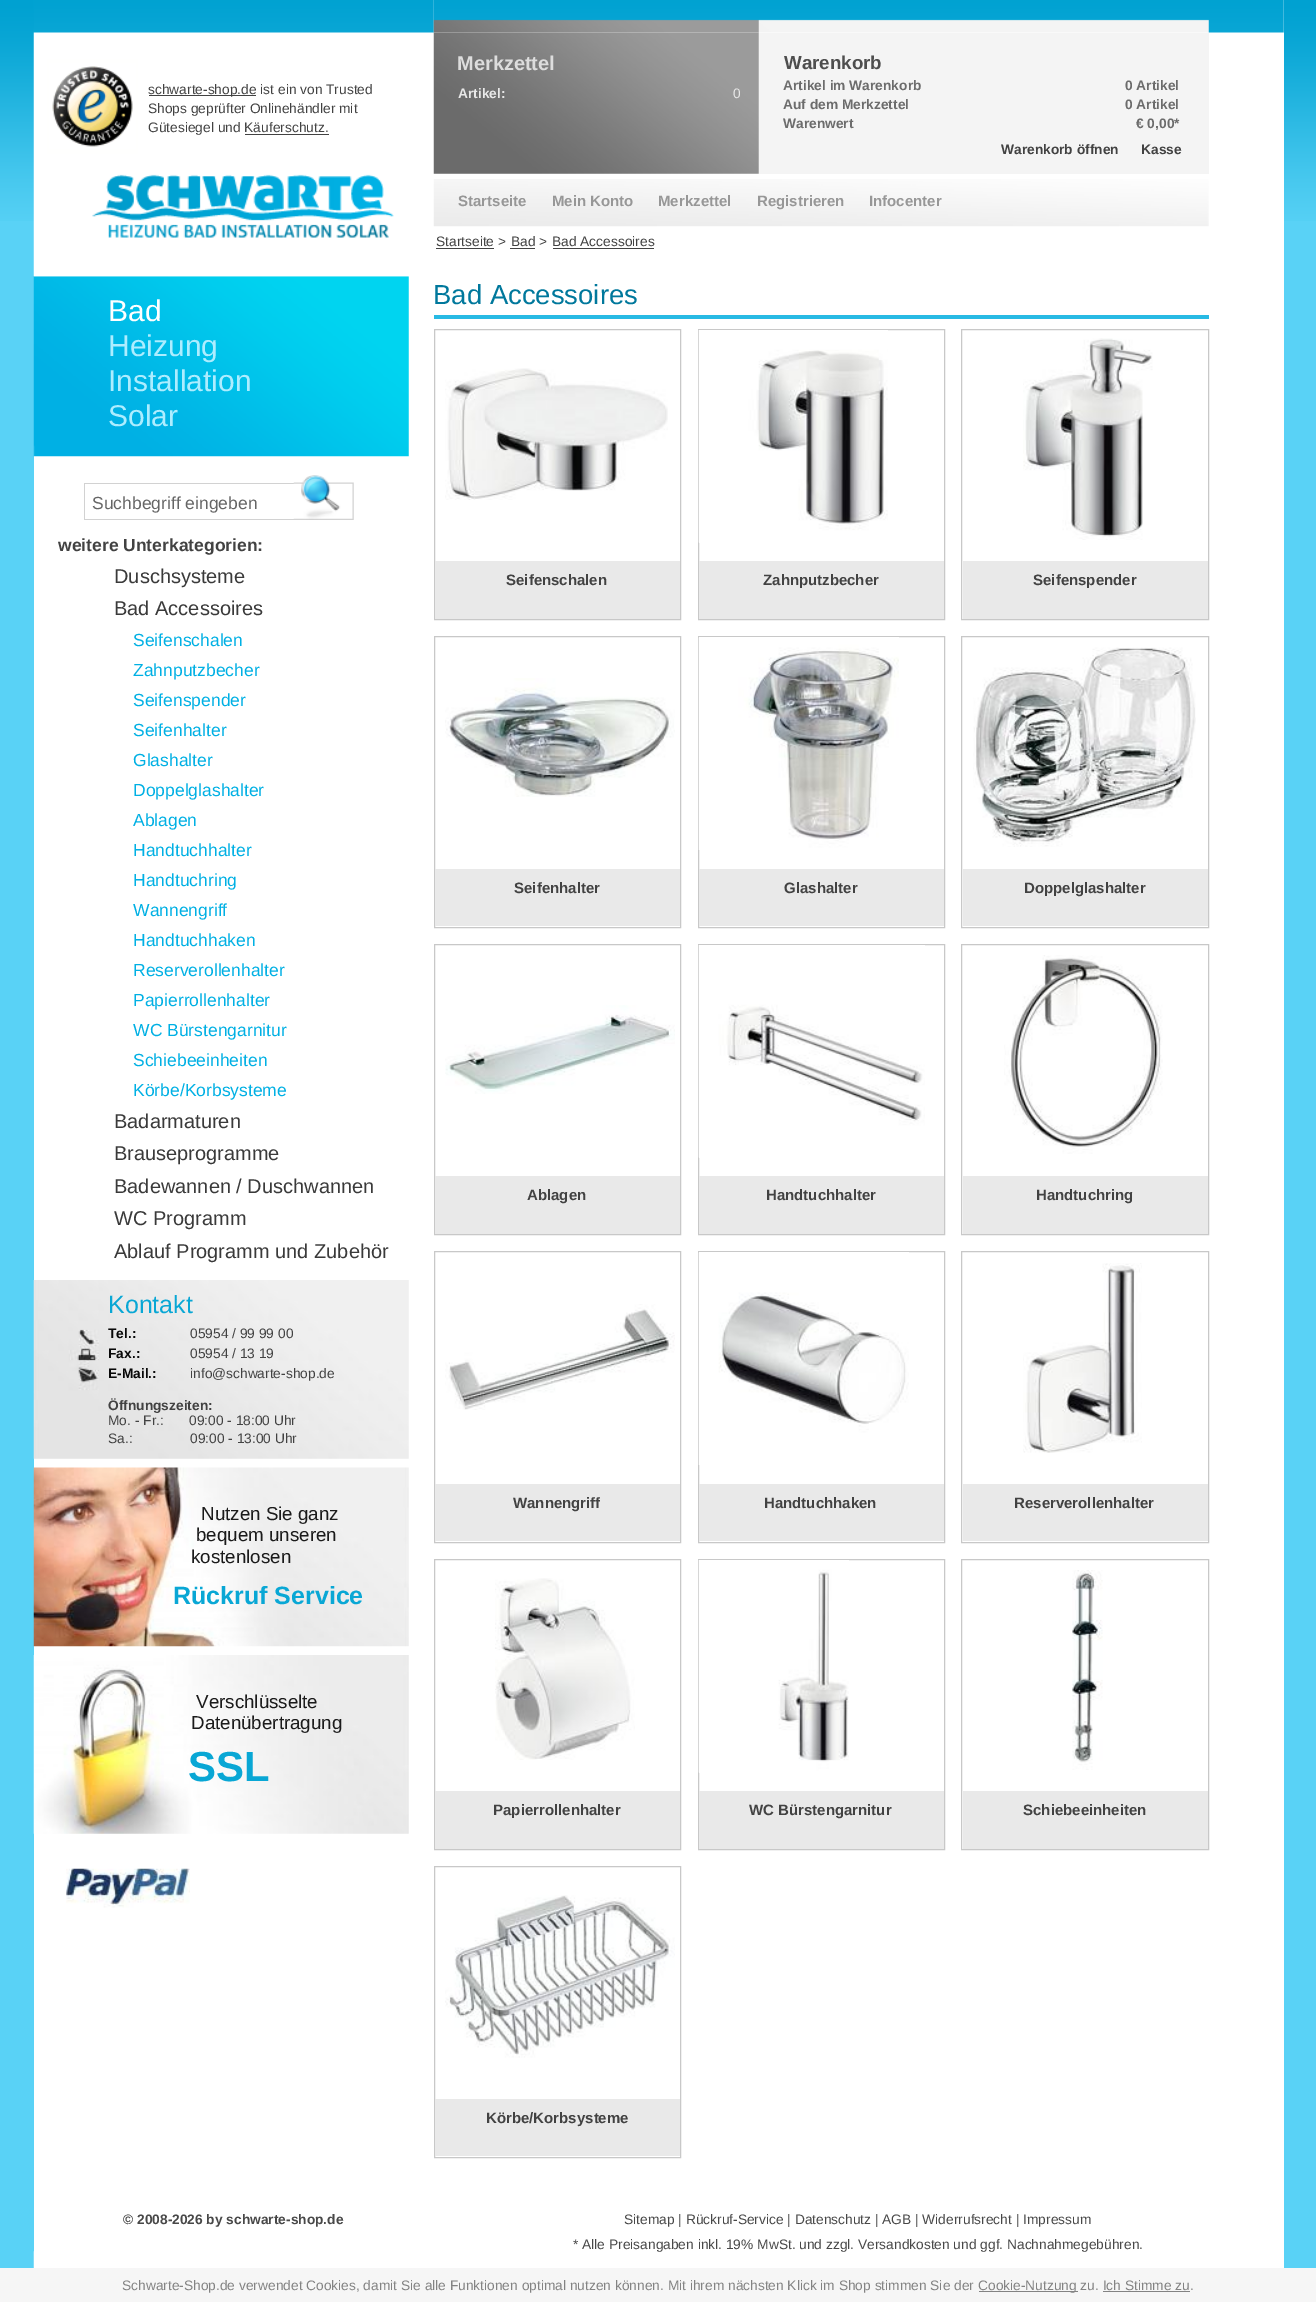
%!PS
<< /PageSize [1316 2302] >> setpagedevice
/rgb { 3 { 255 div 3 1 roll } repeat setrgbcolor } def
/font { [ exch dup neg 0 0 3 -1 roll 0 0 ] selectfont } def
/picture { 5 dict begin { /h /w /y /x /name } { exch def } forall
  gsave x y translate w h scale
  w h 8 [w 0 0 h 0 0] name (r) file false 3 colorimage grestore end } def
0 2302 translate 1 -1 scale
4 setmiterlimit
89 210 246 rgb
0 0 1316 2302 rectfill
(img/1.rgb) 0 0 1316 221 picture
255 255 255 rgb
34 276 1250 1992 rectfill
433 0 851 276 rectfill
(img/6.rgb) 33 276 376 181 picture
(img/2.rgb) 33 0 401 277 picture
66 66 66 rgb
149 95 107 1 rectfill
245 134 84 1 rectfill
(img/3.rgb) 433 0 851 33 picture
(img/4.rgb) 433 32 326 142 picture
244 244 244 rgb
759 33 450 141 rectfill
(img/5.rgb) 433 179 776 48 picture
[
  [436 248 58 1 66 66 66]
  [510 248 25 1 66 66 66]
  [553 248 101 1 66 66 66]
  [84 483 210 1 210 210 210]
  [84 519 210 1 210 210 210]
  [84 483 1 37 210 210 210]
] { aload pop rgb rectfill } forall
(img/7.rgb) 293 475 61 45 picture
(img/8.rgb) 33 1280 376 179 picture
(img/9.rgb) 33 1467 376 180 picture
(img/10.rgb) 33 1655 376 179 picture
(img/11.rgb) 66 1868 124 40 picture
40 186 228 rgb
434 315 775 4 rectfill
200 200 200 rgb
434.5 329.5 246 290 rectstroke
(img/12.rgb) 445 368 223 132 picture
233 233 233 rgb
435 561 245 58 rectfill
200 200 200 rgb
698.5 329.5 246 290 rectstroke
(img/13.rgb) 698 330 190 213 picture
233 233 233 rgb
699 561 245 58 rectfill
200 200 200 rgb
961.5 329.5 247 290 rectstroke
(img/14.rgb) 1023 338 130 202 picture
233 233 233 rgb
963 561 245 58 rectfill
200 200 200 rgb
434.5 636.5 246 291 rectstroke
(img/15.rgb) 445 678 230 119 picture
233 233 233 rgb
435 869 245 57 rectfill
200 200 200 rgb
698.5 636.5 246 291 rectstroke
(img/16.rgb) 698 637 201 213 picture
233 233 233 rgb
699 869 245 57 rectfill
200 200 200 rgb
961.5 636.5 247 291 rectstroke
(img/17.rgb) 973 647 223 200 picture
233 233 233 rgb
963 869 245 57 rectfill
200 200 200 rgb
434.5 944.5 246 290 rectstroke
(img/18.rgb) 445 1005 230 89 picture
233 233 233 rgb
435 1176 245 58 rectfill
200 200 200 rgb
698.5 944.5 246 290 rectstroke
(img/19.rgb) 698 945 227 213 picture
233 233 233 rgb
699 1176 245 58 rectfill
200 200 200 rgb
961.5 944.5 247 290 rectstroke
(img/20.rgb) 1004 955 159 199 picture
233 233 233 rgb
963 1176 245 58 rectfill
200 200 200 rgb
434.5 1251.5 246 291 rectstroke
(img/21.rgb) 445 1304 230 106 picture
233 233 233 rgb
435 1484 245 57 rectfill
200 200 200 rgb
698.5 1251.5 246 291 rectstroke
(img/22.rgb) 698 1252 211 213 picture
233 233 233 rgb
699 1484 245 57 rectfill
200 200 200 rgb
961.5 1251.5 247 291 rectstroke
(img/23.rgb) 1023 1263 119 190 picture
233 233 233 rgb
963 1484 245 57 rectfill
200 200 200 rgb
434.5 1559.5 246 290 rectstroke
(img/24.rgb) 495 1578 140 182 picture
233 233 233 rgb
435 1791 245 58 rectfill
200 200 200 rgb
698.5 1559.5 246 290 rectstroke
(img/25.rgb) 698 1560 151 213 picture
233 233 233 rgb
699 1791 245 58 rectfill
200 200 200 rgb
961.5 1559.5 247 290 rectstroke
(img/26.rgb) 1072 1570 31 200 picture
233 233 233 rgb
963 1791 245 58 rectfill
200 200 200 rgb
434.5 1866.5 246 291 rectstroke
(img/27.rgb) 445 1895 230 163 picture
233 233 233 rgb
435 2099 245 57 rectfill
(img/28.rgb) 33 2251 1251 17 picture
[
  [0 2268 1316 34 246 246 246]
  [979 2291 99 1 131 131 131]
  [1103 2291 87 1 131 131 131]
] { aload pop rgb rectfill } forall
/LiberationSans-Regular 13.75 font
66 66 66 rgb
[
  [(schwarte-shop.de ist ein von Trusted) 148 94]
  [(Shops geprüfter Onlinehändler mit) 148 113]
  [(Gütesiegel und Käuferschutz.) 148 132]
] { aload pop moveto show } forall
/LiberationSans-Bold 20 font
221 221 221 rgb
457 70 moveto (Merkzettel) show
/LiberationSans-Bold 13.75 font
232 232 232 rgb
458 98 moveto (Artikel:) show
/LiberationSans-Regular 13.75 font
733 98 moveto (0) show
/LiberationSans-Bold 18.75 font
78 78 78 rgb
784 69 moveto (Warenkorb) show
/LiberationSans-Bold 13.75 font
108 108 108 rgb
[
  [(Artikel im Warenkorb) 783 90]
  [(0 Artikel) 1125 90]
  [(Auf dem Merkzettel) 783 109]
  [(0 Artikel) 1125 109]
  [(Warenwert) 783 128]
  [(€ 0,00*) 1136 128]
] { aload pop moveto show } forall
66 66 66 rgb
1001 154 moveto (Warenkorb öffnen) show
1141 154 moveto (Kasse) show
/LiberationSans-Bold 15 font
151 151 151 rgb
[
  [(Startseite) 458 206]
  [(Mein Konto) 552 206]
  [(Merkzettel) 658 206]
  [(Registrieren) 757 206]
  [(Infocenter) 869 206]
] { aload pop moveto show } forall
/LiberationSans-Regular 13.75 font
66 66 66 rgb
[
  [(Startseite >) 436 246]
  [(Bad >) 511 246]
  [(Bad Accessoires) 552 246]
] { aload pop moveto show } forall
/LiberationSans-Regular 30 font
255 255 255 rgb
108 321 moveto (Bad) show
173 237 255 rgb
[
  [(Heizung) 108 356]
  [(Installation) 108 391]
  [(Solar) 108 426]
] { aload pop moveto show } forall
/LiberationSans-Regular 17.5 font
102 102 102 rgb
92 509 moveto (Suchbegriff eingeben) show
/LiberationSans-Bold 17.5 font
66 66 66 rgb
58 551 moveto (weitere Unterkategorien:) show
/LiberationSans-Regular 20 font
58 58 58 rgb
114 583 moveto (Duschsysteme) show
114 615 moveto (Bad Accessoires) show
/LiberationSans-Regular 17.5 font
0 176 228 rgb
[
  [(Seifenschalen) 133 646]
  [(Zahnputzbecher) 133 676]
  [(Seifenspender) 133 706]
  [(Seifenhalter) 133 736]
  [(Glashalter) 133 766]
  [(Doppelglashalter) 133 796]
  [(Ablagen) 133 826]
  [(Handtuchhalter) 133 856]
  [(Handtuchring) 133 886]
  [(Wannengriff) 133 916]
  [(Handtuchhaken) 133 946]
  [(Reserverollenhalter) 133 976]
  [(Papierrollenhalter) 133 1006]
  [(WC Bürstengarnitur) 133 1036]
  [(Schiebeeinheiten) 133 1066]
  [(Körbe/Korbsysteme) 133 1096]
] { aload pop moveto show } forall
/LiberationSans-Regular 20 font
58 58 58 rgb
[
  [(Badarmaturen) 114 1128]
  [(Brauseprogramme) 114 1160]
  [(Badewannen / Duschwannen) 114 1193]
  [(WC Programm) 114 1225]
  [(Ablauf Programm und Zubehör) 114 1258]
] { aload pop moveto show } forall
/LiberationSans-Regular 25 font
9 167 213 rgb
108 1313 moveto (Kontakt) show
/LiberationSans-Bold 13.75 font
9 9 9 rgb
108 1338 moveto (Tel.:) show
/LiberationSans-Regular 13.75 font
66 66 66 rgb
190 1338 moveto (05954 / 99 99 00) show
/LiberationSans-Bold 13.75 font
9 9 9 rgb
108 1358 moveto (Fax.:) show
/LiberationSans-Regular 13.75 font
66 66 66 rgb
190 1358 moveto (05954 / 13 19) show
/LiberationSans-Bold 13.75 font
9 9 9 rgb
108 1378 moveto (E-Mail.:) show
/LiberationSans-Regular 13.75 font
66 66 66 rgb
190 1378 moveto (info@schwarte-shop.de) show
/LiberationSans-Bold 13.75 font
108 1410 moveto (Öffnungszeiten:) show
/LiberationSans-Regular 13.75 font
[
  [(Mo. - Fr.:) 108 1425]
  [(09:00 - 18:00 Uhr) 189 1425]
  [(Sa.:) 108 1443]
  [(09:00 - 13:00 Uhr) 190 1443]
] { aload pop moveto show } forall
/LiberationSans-Regular 18.75 font
27 27 27 rgb
[
  [(Nutzen Sie ganz) 201 1520]
  [(bequem unseren) 196 1541]
  [(kostenlosen) 191 1563]
] { aload pop moveto show } forall
/LiberationSans-Bold 25 font
9 167 213 rgb
173 1604 moveto (Rückruf Service) show
/LiberationSans-Regular 18.75 font
27 27 27 rgb
196 1708 moveto (Verschlüsselte) show
191 1729 moveto (Datenübertragung) show
/LiberationSans-Bold 42 font
9 167 213 rgb
188 1781 moveto (SSL) show
/LiberationSans-Regular 27.5 font
0 120 156 rgb
433 304 moveto (Bad Accessoires) show
/LiberationSans-Bold 15 font
66 66 66 rgb
[
  [(Seifenschalen) 506 585]
  [(Zahnputzbecher) 763 585]
  [(Seifenspender) 1033 585]
  [(Seifenhalter) 514 893]
  [(Glashalter) 784 893]
  [(Doppelglashalter) 1024 893]
  [(Ablagen) 527 1200]
  [(Handtuchhalter) 766 1200]
  [(Handtuchring) 1036 1200]
  [(Wannengriff) 513 1508]
  [(Handtuchhaken) 764 1508]
  [(Reserverollenhalter) 1014 1508]
  [(Papierrollenhalter) 493 1815]
  [(WC Bürstengarnitur) 749 1815]
  [(Schiebeeinheiten) 1023 1815]
  [(Körbe/Korbsysteme) 486 2123]
] { aload pop moveto show } forall
/LiberationSans-Bold 13.75 font
72 72 72 rgb
123 2224 moveto (© 2008-2026 by schwarte-shop.de) show
/LiberationSans-Regular 13.75 font
624 2224 moveto (Sitemap | Rückruf-Service | Datenschutz | AGB | Widerrufsrecht | Impressum) show
573 2249 moveto (* Alle Preisangaben inkl. 19% MwSt. und zzgl. Versandkosten und ggf. Nachnahmegebühren.) show
131 131 131 rgb
122 2290 moveto (Schwarte-Shop.de verwendet Cookies, damit Sie alle Funktionen optimal nutzen können. Mit ihrem nächsten Klick im Shop stimmen Sie der) show
978 2290 moveto (Cookie-Nutzung zu. Ich Stimme zu.) show
showpage
